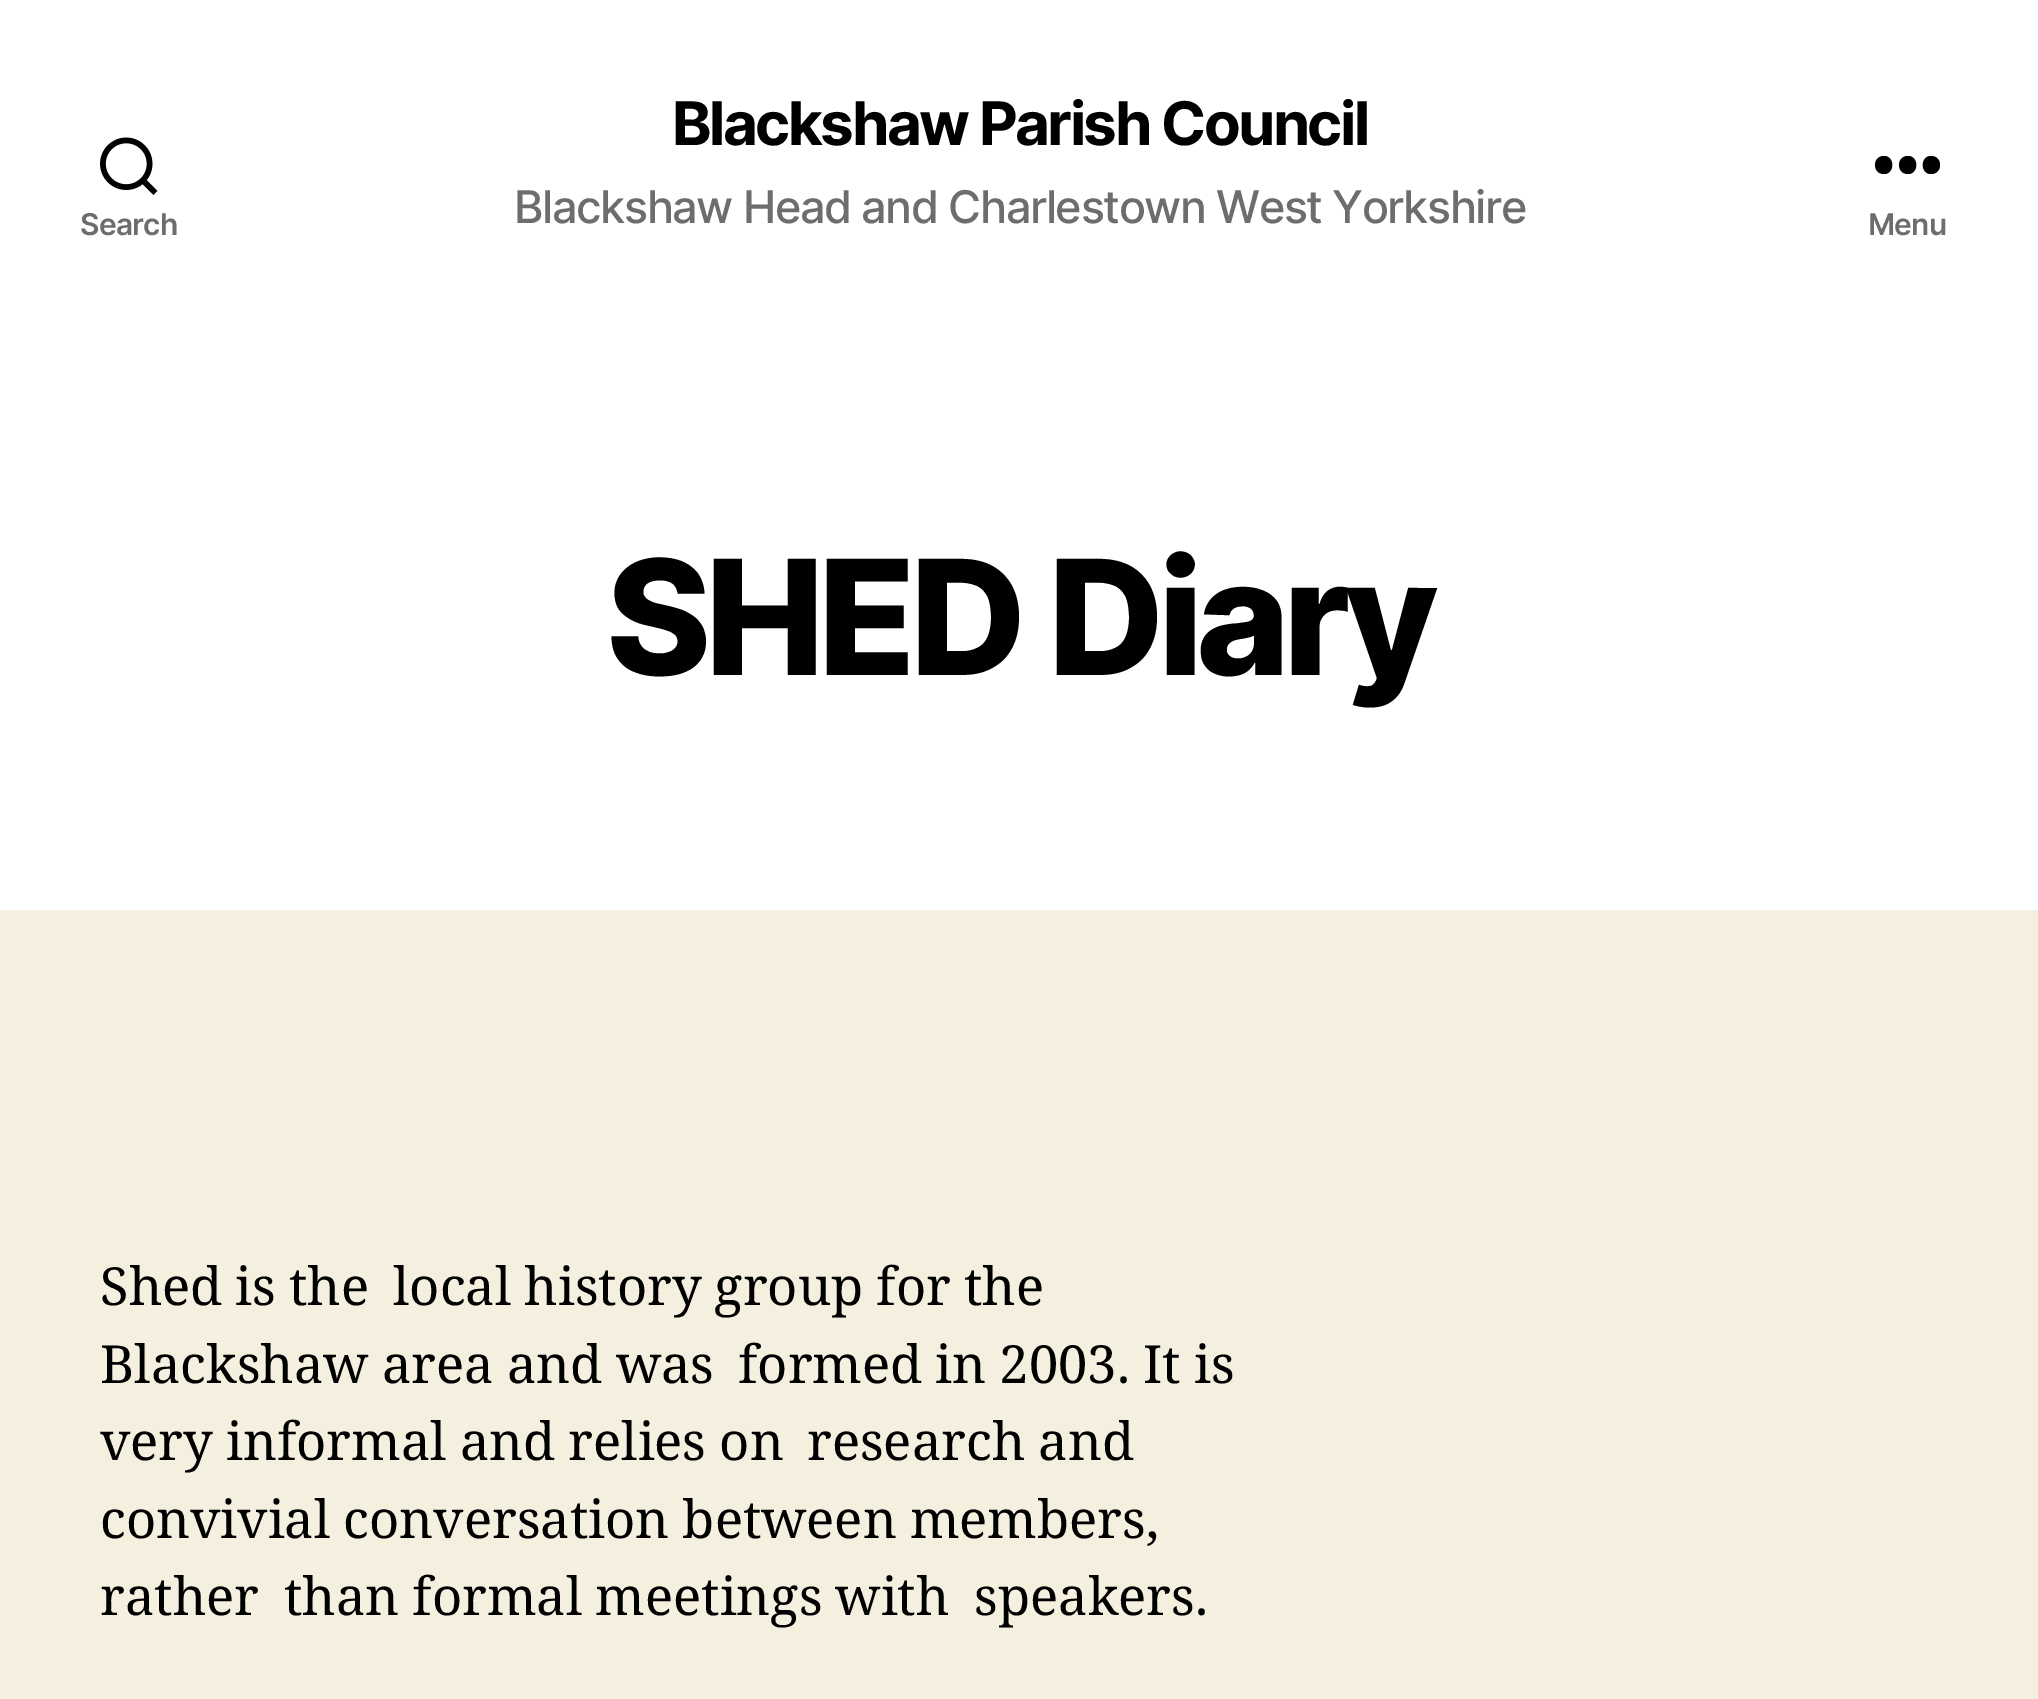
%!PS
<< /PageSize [2038 1699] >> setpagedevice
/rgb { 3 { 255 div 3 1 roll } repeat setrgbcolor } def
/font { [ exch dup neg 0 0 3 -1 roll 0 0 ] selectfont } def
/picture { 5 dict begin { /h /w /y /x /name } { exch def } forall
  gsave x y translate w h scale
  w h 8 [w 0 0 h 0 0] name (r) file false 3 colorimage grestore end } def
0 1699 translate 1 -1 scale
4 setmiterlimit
245 239 224 rgb
0 0 2038 1699 rectfill
255 255 255 rgb
0 0 2038 910 rectfill
(img/1.rgb) 100 137 58 58 picture
0 0 0 rgb
1884 174 moveto 1872 174 1872 156 1884 156 curveto 1895 156 1895 174 1884 174 curveto closepath 1908 174 moveto 1896 174 1896 156 1908 156 curveto 1919 156 1919 174 1908 174 curveto closepath 1931 174 moveto 1920 174 1920 156 1931 156 curveto 1943 156 1943 174 1931 174 curveto closepath eofill
/Inter-SemiBold 30 font
109 109 109 rgb
80 235 moveto -0.75 0 (Search) ashow
/Inter-Bold 60 font
0 0 0 rgb
672 145 moveto -2.5 0 (Blackshaw Parish Council) ashow
/Inter-Medium 45 font
109 109 109 rgb
514 223 moveto -1.4 0 (Blackshaw Head and Charlestown West Yorkshire) ashow
/Inter-SemiBold 30 font
1868 235 moveto -0.75 0 (Menu) ashow
/Inter-ExtraBold 160 font
0 0 0 rgb
606 675 moveto -6.75 0 (SHED Diary) ashow
/NotoSerif-Regular 52.5 font
100 1305 moveto -0.5 0 32 (Shed is the) widthshow
393 1305 moveto -0.5 0 32 (local history group for the) widthshow
100 1383 moveto -0.5 0 32 (Blackshaw area and was) widthshow
738 1383 moveto -0.5 0 32 (formed in 2003. It is) widthshow
100 1460 moveto -0.5 0 32 (very informal and relies on) widthshow
807 1460 moveto -0.5 0 32 (research and) widthshow
100 1538 moveto -0.5 0 32 (convivial conversation between members,) widthshow
100 1615 moveto (rather) show
284 1615 moveto -0.5 0 32 (than formal meetings with) widthshow
974 1615 moveto (speakers.) show
showpage
